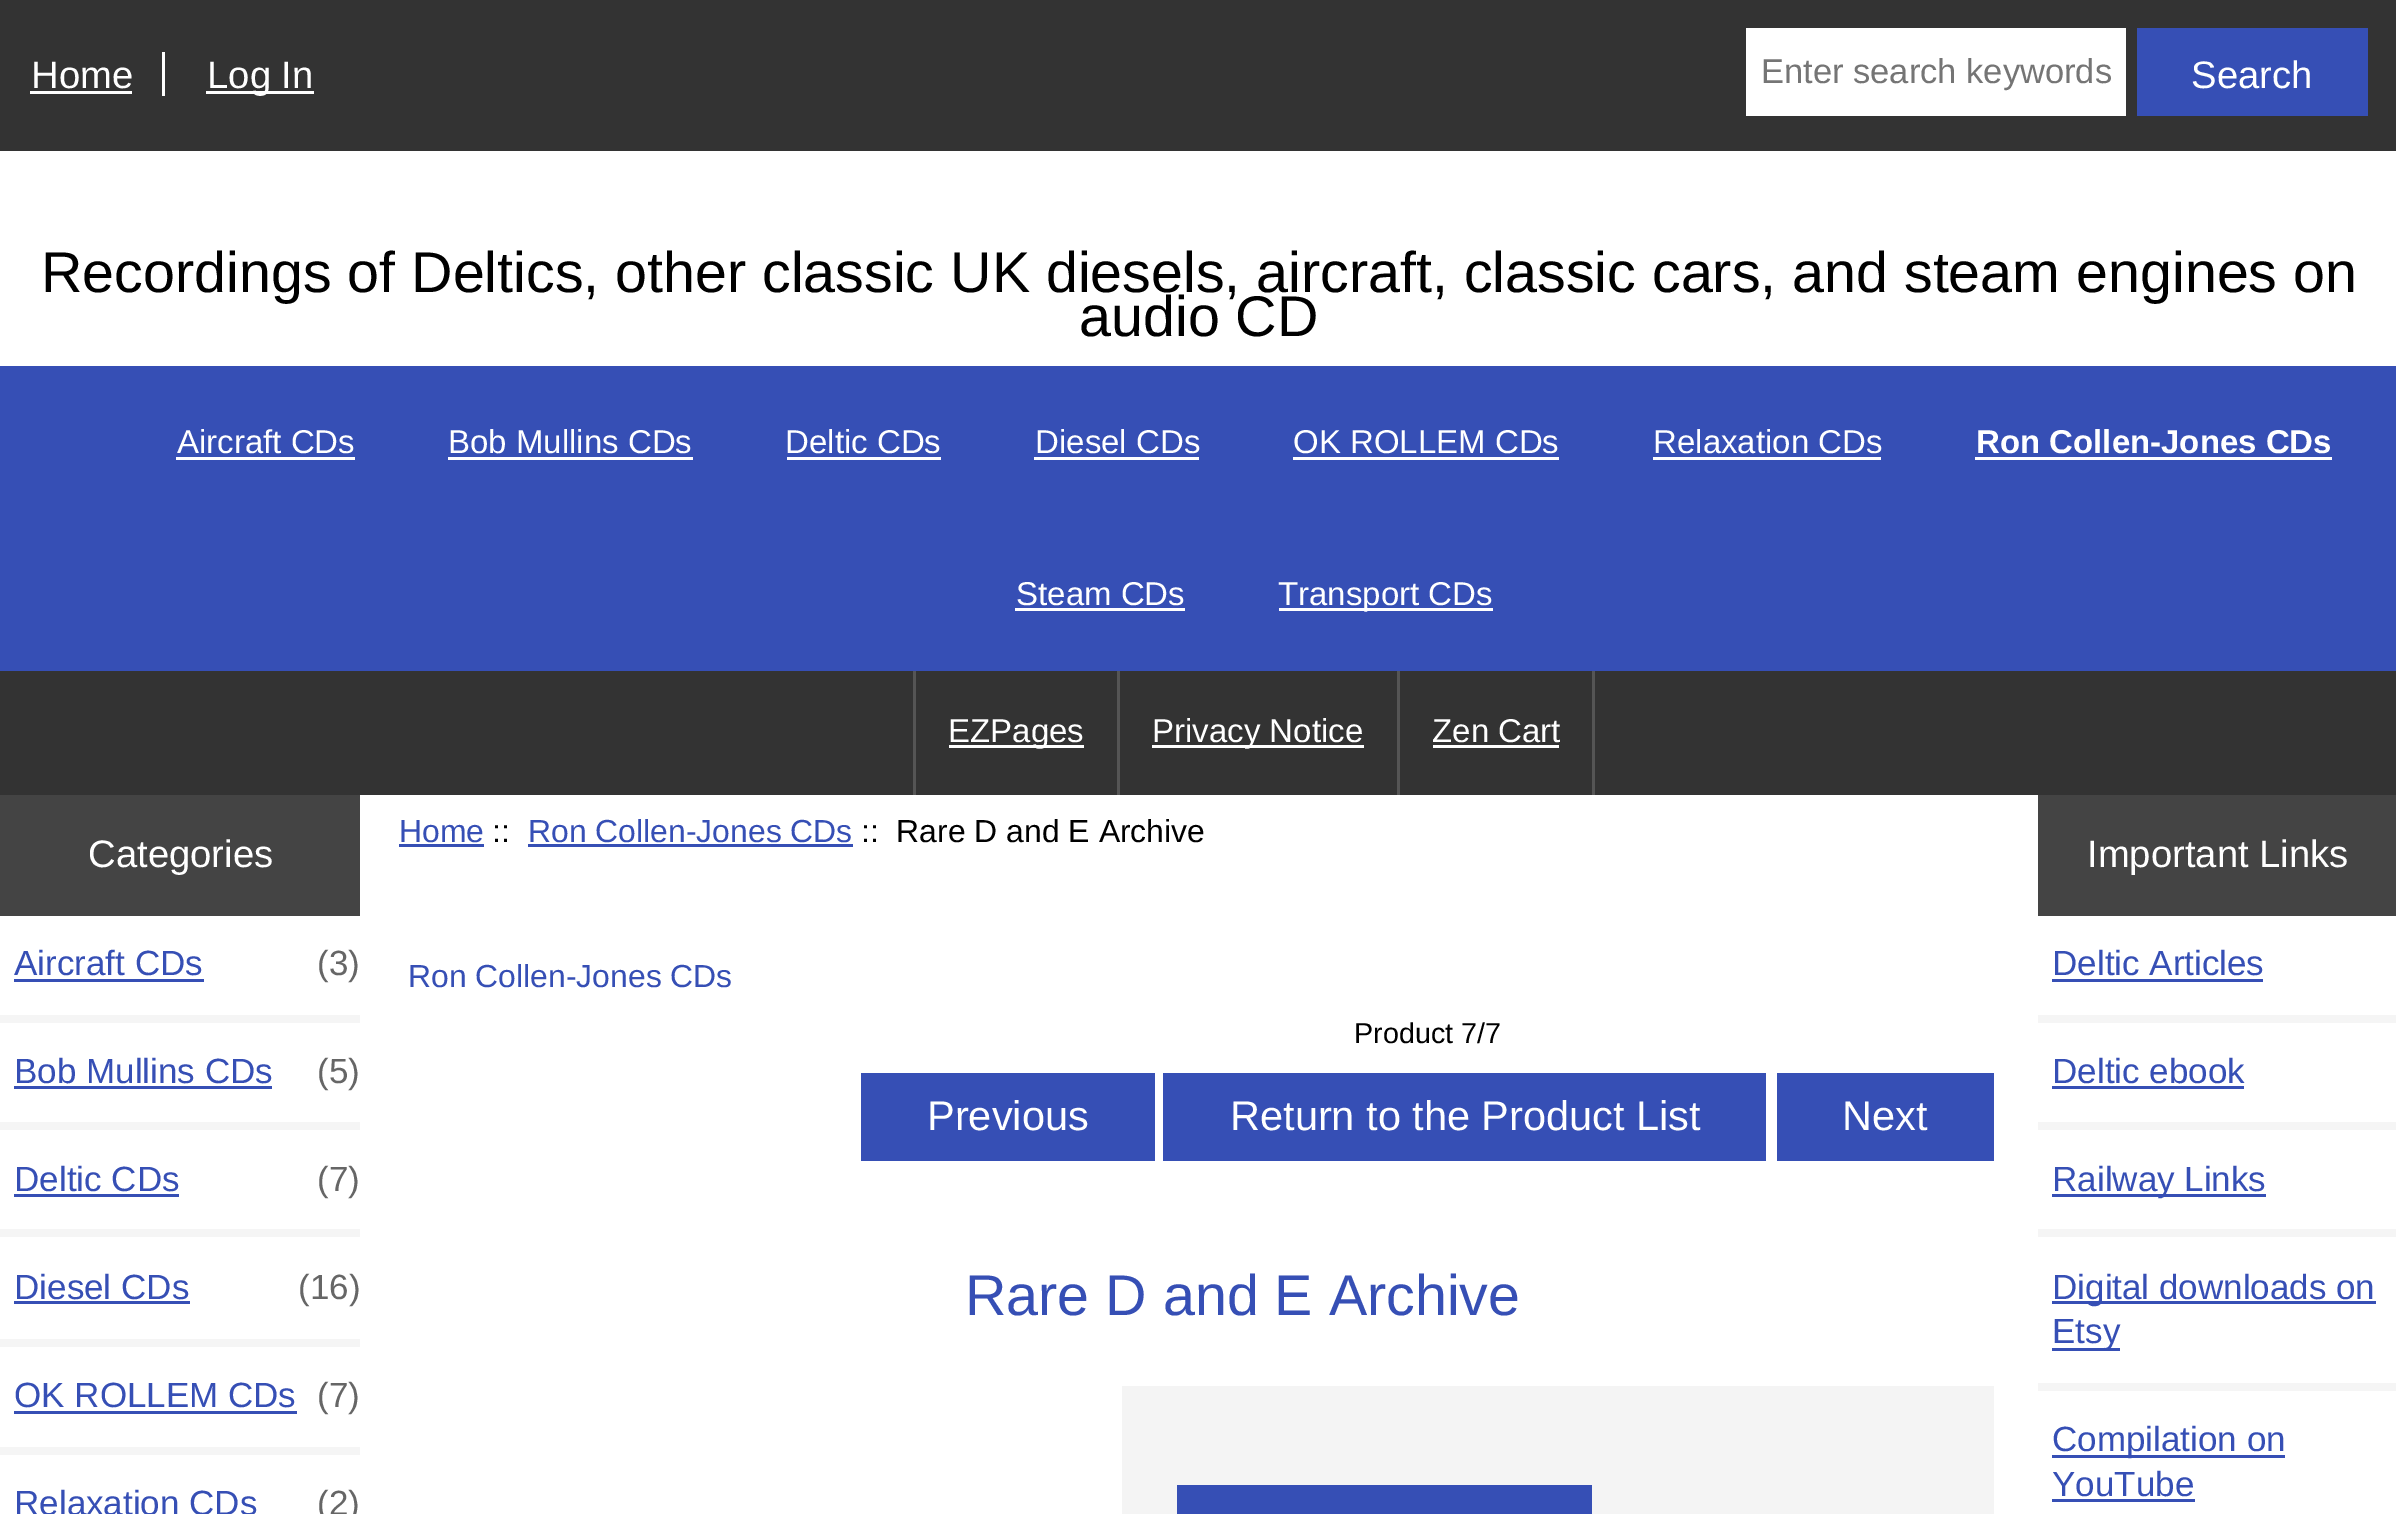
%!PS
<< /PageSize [2396 1514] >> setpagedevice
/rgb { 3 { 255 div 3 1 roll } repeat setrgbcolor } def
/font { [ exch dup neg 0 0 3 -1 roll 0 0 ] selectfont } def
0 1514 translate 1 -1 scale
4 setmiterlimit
255 255 255 rgb
0 0 2396 1514 rectfill
[
  [0 0 2396 151 51 51 51]
  [162 52 3 44 255 255 255]
  [30 91 102 3 255 255 255]
  [206 91 108 3 255 255 255]
  [1746 28 380 88 255 255 255]
  [2137 28 231 88 54 79 181]
  [0 366 2396 305 54 79 181]
  [176 457 179 3 255 255 255]
  [448 457 245 3 255 255 255]
  [787 457 154 3 255 255 255]
  [1034 457 165 3 255 255 255]
  [1293 457 266 3 255 255 255]
  [1653 457 228 3 255 255 255]
  [1975 457 357 3 255 255 255]
  [1015 608 170 3 255 255 255]
  [1279 608 214 3 255 255 255]
  [0 671 2396 124 51 51 51]
  [913 671 3 124 85 85 85]
  [949 745 135 3 255 255 255]
  [1117 671 3 124 85 85 85]
  [1152 745 212 3 255 255 255]
  [1592 671 3 124 85 85 85]
  [1397 671 3 124 85 85 85]
  [1433 745 126 3 255 255 255]
  [0 795 360 121 68 68 68]
  [0 1015 360 8 245 245 245]
  [14 979 190 3 54 79 181]
  [0 1122 360 8 245 245 245]
  [14 1086 258 3 54 79 181]
  [0 1229 360 8 245 245 245]
  [14 1194 165 3 54 79 181]
  [0 1339 360 8 245 245 245]
  [14 1301 176 3 54 79 181]
  [0 1447 360 8 245 245 245]
  [14 1411 283 3 54 79 181]
  [399 844 85 3 54 79 181]
  [528 844 325 3 54 79 181]
  [861 1073 294 88 54 79 181]
  [1163 1073 603 88 54 79 181]
  [1777 1073 217 88 54 79 181]
  [1122 1386 872 128 244 244 244]
  [1177 1485 415 29 54 79 181]
  [2038 795 358 121 68 68 68]
  [2038 1015 358 8 245 245 245]
  [2052 979 211 3 54 79 181]
  [2038 1122 358 8 245 245 245]
  [2052 1086 192 3 54 79 181]
  [2038 1229 358 8 245 245 245]
  [2052 1194 214 3 54 79 181]
  [2038 1383 358 8 245 245 245]
  [2052 1301 324 3 54 79 181]
  [2052 1348 68 3 54 79 181]
  [2052 1455 233 3 54 79 181]
  [2052 1499 143 3 54 79 181]
] { aload pop rgb rectfill } forall
/LiberationSans-Regular 38.25 font
255 255 255 rgb
31 88 moveto (Home) show
207 88 moveto (Log In) show
/LiberationSans-Regular 34.5 font
117 117 117 rgb
1761 83 moveto (Enter search keywords) show
/LiberationSans-Regular 38.25 font
255 255 255 rgb
2191 88 moveto (Search) show
/LiberationSans-Regular 57.4 font
0 0 0 rgb
41 292 moveto (Recordings of Deltics, other classic UK diesels, aircraft, classic cars, and steam engines on) show
1079 336 moveto (audio CD) show
/LiberationSans-Regular 33 font
255 255 255 rgb
[
  [(Aircraft CDs) 177 453]
  [(Bob Mullins CDs) 448 453]
  [(Deltic CDs) 785 453]
  [(Diesel CDs) 1035 453]
  [(OK ROLLEM CDs) 1293 453]
  [(Relaxation CDs) 1653 453]
] { aload pop moveto show } forall
/LiberationSans-Bold 33 font
1976 453 moveto (Ron Collen-Jones CDs) show
/LiberationSans-Regular 33 font
[
  [(Steam CDs) 1016 605]
  [(Transport CDs) 1278 605]
  [(EZPages) 948 742]
  [(Privacy Notice) 1152 742]
  [(Zen Cart) 1432 742]
] { aload pop moveto show } forall
/LiberationSans-Regular 38.25 font
88 867 moveto (Categories) show
/LiberationSans-Regular 35 font
54 79 181 rgb
14 975 moveto (Aircraft CDs) show
102 102 102 rgb
317 975 moveto (\(3\)) show
54 79 181 rgb
14 1083 moveto (Bob Mullins CDs) show
102 102 102 rgb
317 1083 moveto (\(5\)) show
54 79 181 rgb
14 1191 moveto (Deltic CDs) show
102 102 102 rgb
317 1191 moveto (\(7\)) show
54 79 181 rgb
14 1299 moveto (Diesel CDs) show
102 102 102 rgb
298 1299 moveto (\(16\)) show
54 79 181 rgb
14 1407 moveto (OK ROLLEM CDs) show
102 102 102 rgb
317 1407 moveto (\(7\)) show
54 79 181 rgb
14 1515 moveto (Relaxation CDs) show
102 102 102 rgb
317 1515 moveto (\(2\)) show
/LiberationSans-Regular 31.9 font
54 79 181 rgb
399 842 moveto (Home) show
0 0 0 rgb
492 842 moveto (::) show
54 79 181 rgb
528 842 moveto (Ron Collen-Jones CDs) show
0 0 0 rgb
861 842 moveto (::  Rare D and E Archive) show
54 79 181 rgb
408 987 moveto (Ron Collen-Jones CDs) show
/LiberationSans-Regular 28.75 font
0 0 0 rgb
1354 1043 moveto (Product 7/7) show
/LiberationSans-Regular 41.5 font
255 255 255 rgb
[
  [(Previous) 927 1130]
  [(Return to the Product List) 1230 1130]
  [(Next) 1842 1130]
] { aload pop moveto show } forall
/LiberationSans-Regular 57.4 font
54 79 181 rgb
965 1315 moveto (Rare D and E Archive) show
/LiberationSans-Regular 38.25 font
255 255 255 rgb
2087 867 moveto (Important Links) show
/LiberationSans-Regular 35 font
54 79 181 rgb
[
  [(Deltic Articles) 2052 975]
  [(Deltic ebook) 2052 1083]
  [(Railway Links) 2052 1191]
  [(Digital downloads on) 2052 1299]
  [(Etsy) 2052 1343]
  [(Compilation on) 2052 1451]
  [(YouTube) 2052 1496]
] { aload pop moveto show } forall
showpage
